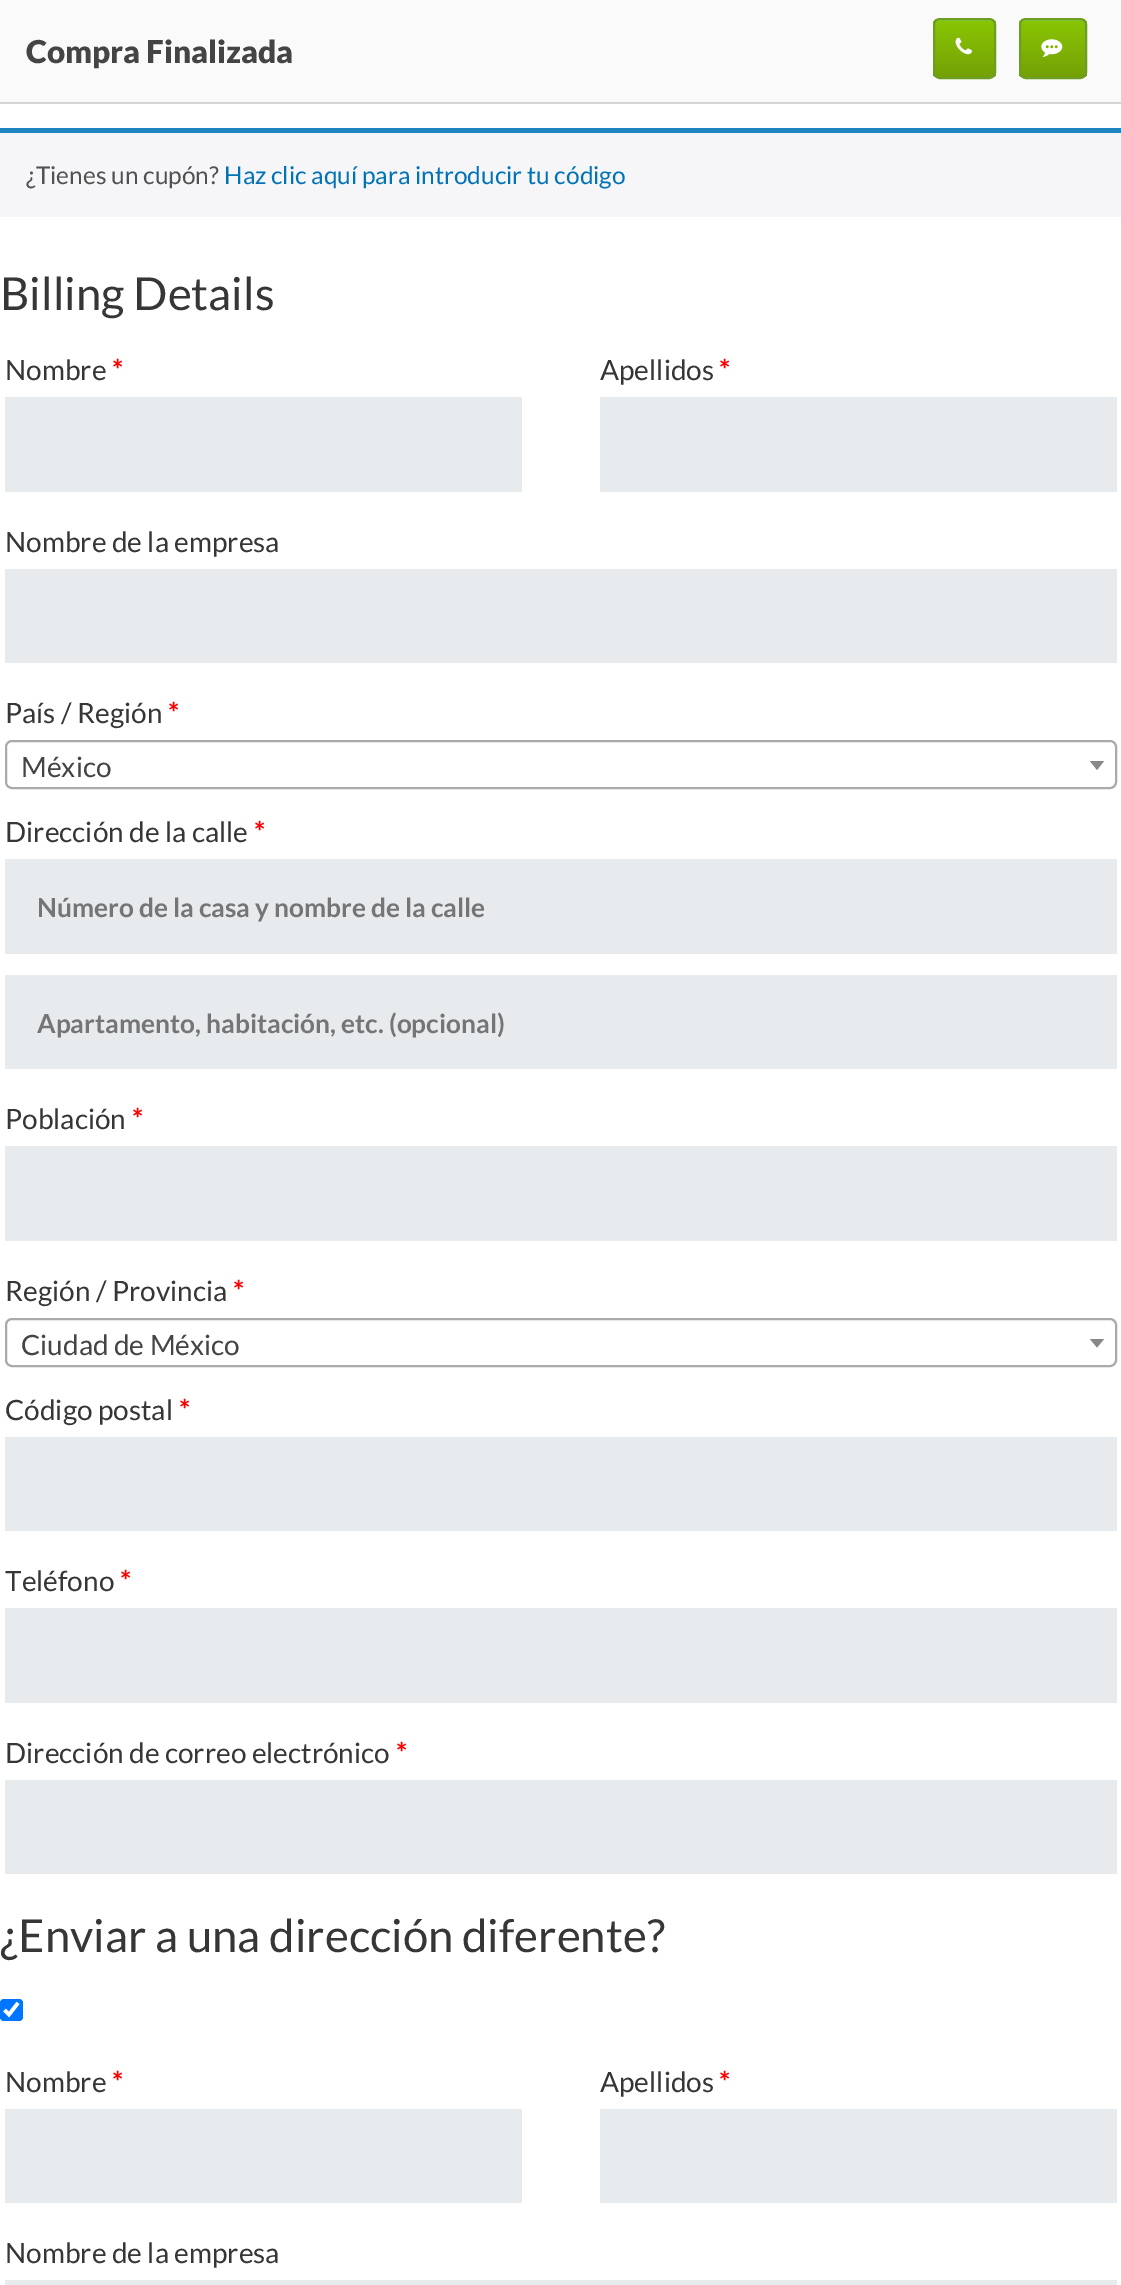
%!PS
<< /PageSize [1121 2285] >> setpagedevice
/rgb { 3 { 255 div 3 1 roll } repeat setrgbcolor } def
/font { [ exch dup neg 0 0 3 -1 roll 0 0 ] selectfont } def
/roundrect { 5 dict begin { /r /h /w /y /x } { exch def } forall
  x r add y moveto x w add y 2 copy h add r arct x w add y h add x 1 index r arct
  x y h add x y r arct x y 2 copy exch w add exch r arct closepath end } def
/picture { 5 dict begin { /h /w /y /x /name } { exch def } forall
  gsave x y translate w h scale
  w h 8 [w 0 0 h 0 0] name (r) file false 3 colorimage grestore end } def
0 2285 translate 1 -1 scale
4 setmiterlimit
255 255 255 rgb
0 0 1121 2285 rectfill
[
  [0 103 1121 1 214 214 214]
  [0 0 1121 102 250 250 250]
  [0 102 1121 1 211 211 211]
] { aload pop rgb rectfill } forall
gsave
933 18 63 61 7 roundrect clip newpath
gsave 933 19 moveto 996 19 lineto 996 77 lineto 933 77 lineto closepath clip newpath
<< /ShadingType 2 /ColorSpace /DeviceRGB /Coords [964 19 964 77] /Extend [true true] /Function << /FunctionType 3 /Domain [0 1] /Functions [<< /FunctionType 2 /Domain [0 1] /C0 [0.537 0.769 0.012] /C1 [0.537 0.769 0.012] /N 1 >> << /FunctionType 2 /Domain [0 1] /C0 [0.537 0.769 0.012] /C1 [0.451 0.631 0.024] /N 1 >>] /Bounds [0.05] /Encode [0 1 0 1] >> >> shfill grestore
grestore
132 209 65 rgb
940 21 moveto 989 21 lineto 992 21 994 23 994 26 curveto 994 24 lineto 994 21 992 19 989 19 curveto 940 19 lineto 938 19 935 21 935 23 curveto 936 22 938 21 940 21 curveto closepath fill
110 158 33 rgb
2 setlinewidth
934 19 61 59 6 roundrect stroke
(img/1.rgb) 955 37 17 18 picture
gsave
1019 18 68 61 7 roundrect clip newpath
gsave 1019 19 moveto 1087 19 lineto 1087 77 lineto 1019 77 lineto closepath clip newpath
<< /ShadingType 2 /ColorSpace /DeviceRGB /Coords [1053 19 1053 77] /Extend [true true] /Function << /FunctionType 3 /Domain [0 1] /Functions [<< /FunctionType 2 /Domain [0 1] /C0 [0.537 0.769 0.012] /C1 [0.537 0.769 0.012] /N 1 >> << /FunctionType 2 /Domain [0 1] /C0 [0.537 0.769 0.012] /C1 [0.451 0.631 0.024] /N 1 >>] /Bounds [0.05] /Encode [0 1 0 1] >> >> shfill grestore
grestore
132 209 65 rgb
1026 21 moveto 1080 21 lineto 1083 21 1085 23 1085 26 curveto 1085 17 1079 19 1071 19 curveto 1034 19 lineto 1026 19 1020 17 1020 26 curveto 1020 23 1023 21 1026 21 curveto closepath fill
110 158 33 rgb
1020 19 66 59 6 roundrect stroke
(img/2.rgb) 1041 39 22 18 picture
[
  [0 133 1121 84 246 245 248]
  [0 128 1121 5 30 133 190]
  [5 397 517 95 232 235 237]
  [600 397 517 95 232 235 237]
  [5 569 1112 94 232 235 237]
] { aload pop rgb rectfill } forall
170 170 170 rgb
6 741 1110 47 6 roundrect stroke
136 136 136 rgb
1090 761 moveto 1104 761 lineto 1097 770 lineto closepath fill
[
  [5 859 1112 95 232 235 237]
  [5 975 1112 94 232 235 237]
  [5 1146 1112 95 232 235 237]
] { aload pop rgb rectfill } forall
170 170 170 rgb
6 1319 1110 47 6 roundrect stroke
136 136 136 rgb
1090 1339 moveto 1104 1339 lineto 1097 1347.5 lineto closepath fill
[
  [5 1437 1112 94 232 235 237]
  [5 1608 1112 95 232 235 237]
  [5 1780 1112 94 232 235 237]
] { aload pop rgb rectfill } forall
0 117 255 rgb
0 1999 23 22 4 roundrect fill
255 255 255 rgb
3.6 setlinewidth
4.5 2010 moveto 9 2014.5 lineto 18 2003 lineto stroke
[
  [5 2109 517 94 232 235 237]
  [600 2109 517 94 232 235 237]
  [5 2280 1112 5 232 235 237]
] { aload pop rgb rectfill } forall
/Lato-Black 31.5 font
68 68 68 rgb
26 63 moveto (Compra Finalizada) show
/Lato-Regular 24.5 font
81 81 81 rgb
26 184 moveto (¿Tienes un cupón?) show
0 115 183 rgb
224 184 moveto (Haz clic aquí para introducir tu código) show
/Lato-Regular 45.5 font
54 54 54 rgb
0 310 moveto (Billing Details) show
/Lato-Regular 28 font
5 380 moveto (Nombre) show
/Lato-Bold 28 font
255 0 0 rgb
112 380 moveto (*) show
/Lato-Regular 28 font
54 54 54 rgb
600 380 moveto (Apellidos) show
/Lato-Bold 28 font
255 0 0 rgb
719 380 moveto (*) show
/Lato-Regular 28 font
54 54 54 rgb
5 552 moveto (Nombre de la empresa) show
5 723 moveto (País / Región) show
/Lato-Bold 28 font
255 0 0 rgb
168 723 moveto (*) show
/Lato-Regular 28 font
68 68 68 rgb
21 777 moveto (México) show
54 54 54 rgb
5 842 moveto (Dirección de la calle) show
/Lato-Bold 28 font
255 0 0 rgb
254 842 moveto (*) show
/Lato-Bold 26.25 font
117 117 117 rgb
37 917 moveto (Número de la casa y nombre de la calle) show
37 1033 moveto (Apartamento, habitación, etc. \(opcional\)) show
/Lato-Regular 28 font
54 54 54 rgb
5 1129 moveto (Población) show
/Lato-Bold 28 font
255 0 0 rgb
132 1129 moveto (*) show
/Lato-Regular 28 font
54 54 54 rgb
5 1301 moveto (Región / Provincia) show
/Lato-Bold 28 font
255 0 0 rgb
233 1301 moveto (*) show
/Lato-Regular 28 font
68 68 68 rgb
21 1355 moveto (Ciudad de México) show
54 54 54 rgb
5 1420 moveto (Código postal) show
/Lato-Bold 28 font
255 0 0 rgb
179 1420 moveto (*) show
/Lato-Regular 28 font
54 54 54 rgb
5 1591 moveto (Teléfono) show
/Lato-Bold 28 font
255 0 0 rgb
120 1591 moveto (*) show
/Lato-Regular 28 font
54 54 54 rgb
5 1763 moveto (Dirección de correo electrónico) show
/Lato-Bold 28 font
255 0 0 rgb
396 1763 moveto (*) show
/Lato-Regular 45.5 font
54 54 54 rgb
0 1952 moveto (¿Enviar a una dirección diferente?) show
/Lato-Regular 28 font
5 2092 moveto (Nombre) show
/Lato-Bold 28 font
255 0 0 rgb
112 2092 moveto (*) show
/Lato-Regular 28 font
54 54 54 rgb
600 2092 moveto (Apellidos) show
/Lato-Bold 28 font
255 0 0 rgb
719 2092 moveto (*) show
/Lato-Regular 28 font
54 54 54 rgb
5 2263 moveto (Nombre de la empresa) show
showpage
